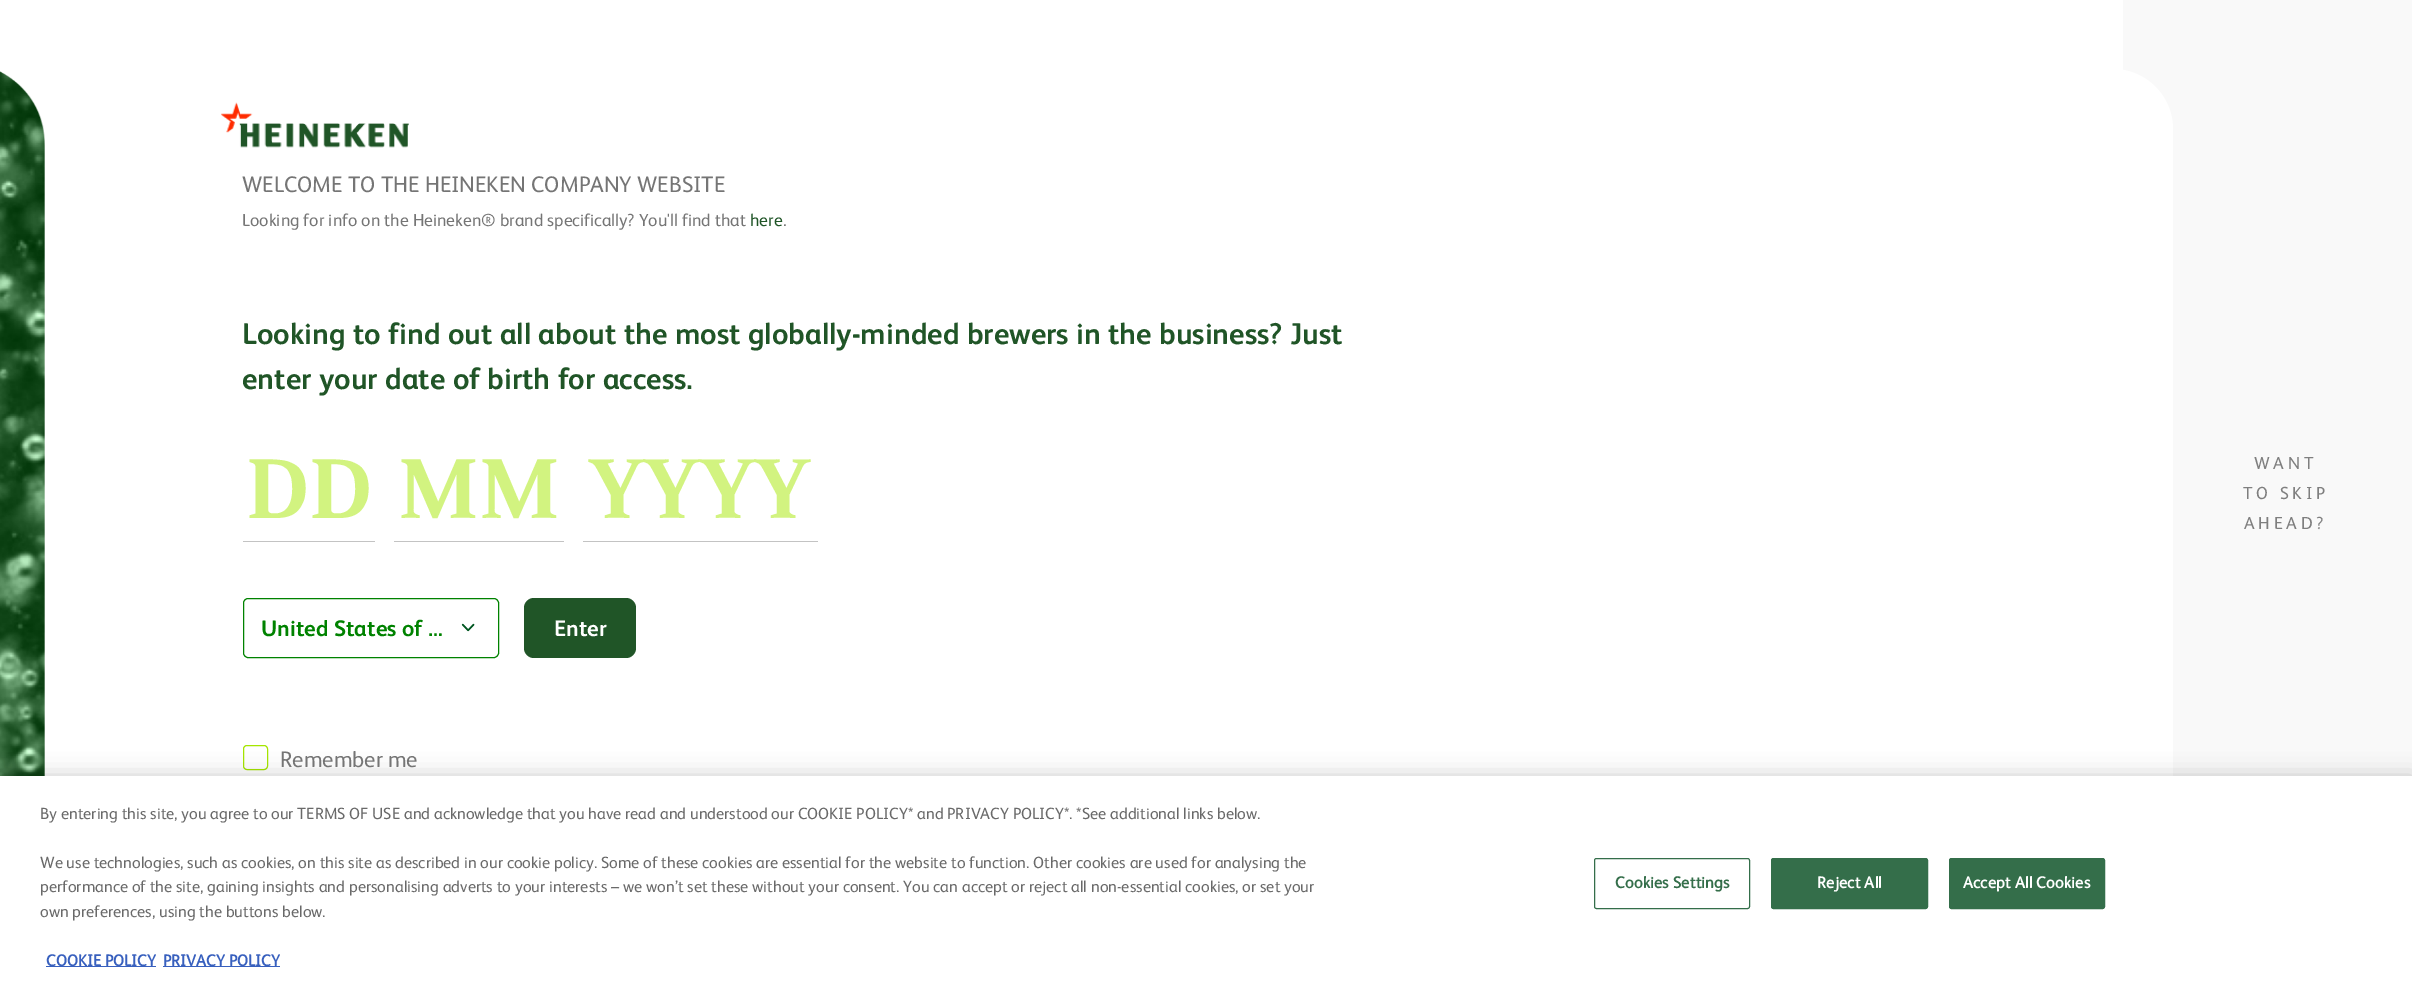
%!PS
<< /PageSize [2412 984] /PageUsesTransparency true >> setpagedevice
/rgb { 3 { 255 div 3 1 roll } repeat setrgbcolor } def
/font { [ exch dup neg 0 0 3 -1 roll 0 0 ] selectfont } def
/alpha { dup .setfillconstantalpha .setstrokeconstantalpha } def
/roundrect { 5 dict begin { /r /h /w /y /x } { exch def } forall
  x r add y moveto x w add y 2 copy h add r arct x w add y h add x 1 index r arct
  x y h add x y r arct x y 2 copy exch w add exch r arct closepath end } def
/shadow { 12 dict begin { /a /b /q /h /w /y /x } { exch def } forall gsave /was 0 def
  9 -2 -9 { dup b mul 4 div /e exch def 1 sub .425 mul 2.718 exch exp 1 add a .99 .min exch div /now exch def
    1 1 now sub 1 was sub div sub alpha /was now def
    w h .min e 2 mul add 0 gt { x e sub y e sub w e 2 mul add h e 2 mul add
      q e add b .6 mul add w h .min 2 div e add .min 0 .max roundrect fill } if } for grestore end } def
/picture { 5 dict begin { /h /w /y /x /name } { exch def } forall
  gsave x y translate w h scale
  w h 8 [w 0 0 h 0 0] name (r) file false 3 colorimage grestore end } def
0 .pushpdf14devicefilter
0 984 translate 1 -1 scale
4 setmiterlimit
255 255 255 rgb
0 0 2412 984 rectfill
(img/1.rgb) 0 71 45 705 picture
(img/2.rgb) 221 102 188 46 picture
[
  [243 541 132 1 195 195 195]
  [394 541 170 1 195 195 195]
  [583 541 235 1 195 195 195]
] { aload pop rgb rectfill } forall
0 130 0 rgb
243.5 598.5 255 59 4.5 roundrect stroke
(img/3.rgb) 461 623 14 9 picture
32 85 39 rgb
524 598 112 60 10 roundrect fill
165 230 0 rgb
243.5 745.5 24 24 3.5 roundrect stroke
249 249 249 rgb
2123 0 289 776 rectfill
255 255 255 rgb
2113 69 moveto 2146 69 2173 96 2173 129 curveto 2173 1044 lineto 2098 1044 lineto 2098 84 lineto 2098 75.5 2104.5 69 2113 69 curveto closepath fill
0 0 0 rgb
0 776 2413 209 0 11 0.2 shadow
[
  [0 776 2412 208 255 255 255]
  [46 966 110 1 56 96 190]
  [163 966 117 1 56 96 190]
] { aload pop rgb rectfill } forall
52 110 74 rgb
1594.5 858.5 155 50 2 roundrect stroke
1771.5 858.5 156 50 2 roundrect gsave fill grestore
stroke
1949.5 858.5 155 50 2 roundrect gsave fill grestore
stroke
/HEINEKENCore-Regular 22.5 font
117 117 117 rgb
242 192 moveto (WELCOME TO THE HEINEKEN COMPANY WEBSITE) show
/HEINEKENCore-Regular 17.5 font
242 226 moveto (Looking for info on the Heineken® brand specifically? You'll find that) show
32 85 39 rgb
750 226 moveto (here) show
117 117 117 rgb
783 226 moveto (.) show
/HEINEKENCore-Bold 30 font
32 85 39 rgb
242 344 moveto (Looking to find out all about the most globally-minded brewers in the business? Just) show
242 389 moveto (enter your date of birth for access.) show
/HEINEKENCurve-SemiBold 94 font
210 243 128 rgb
[
  [(DD) 246 518]
  [(MM) 398 518]
  [(YYYY) 589 518]
] { aload pop moveto show } forall
/HEINEKENCore-Bold 22.5 font
0 130 0 rgb
261 636 moveto (United States of …) show
255 255 255 rgb
554 636 moveto (Enter) show
/HEINEKENCore-Regular 22.5 font
117 117 117 rgb
280 767 moveto (Remember me) show
/HEINEKENCore-Regular 17.5 font
127 127 127 rgb
2254 469 moveto 3.75 0 (WANT) ashow
2243 499 moveto 3.75 0 (TO SKIP) ashow
2244 529 moveto 3.75 0 (AHEAD?) ashow
/HEINEKENCore-Regular 16.25 font
105 105 105 rgb
[
  [(By entering this site, you agree to our TERMS OF USE and acknowledge that you have read and understood our COOKIE POLICY* and PRIVACY POLICY*. *See additional links below.) 40 819]
  [(We use technologies, such as cookies, on this site as described in our cookie policy. Some of these cookies are essential for the website to function. Other cookies are used for analysing the) 40 868]
  [(performance of the site, gaining insights and personalising adverts to your interests – we won’t set these without your consent. You can accept or reject all non-essential cookies, or set your) 40 892]
  [(own preferences, using the buttons below.) 40 917]
] { aload pop moveto show } forall
/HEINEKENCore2-Bold 16.25 font
56 96 190 rgb
46 966 moveto (COOKIE POLICY) show
163 966 moveto (PRIVACY POLICY) show
52 110 74 rgb
1615 888 moveto 0.2 0 (Cookies Settings) ashow
255 255 255 rgb
1817 888 moveto 0.2 0 (Reject All) ashow
1963 888 moveto 0.2 0 (Accept All Cookies) ashow
.poppdf14devicefilter showpage
